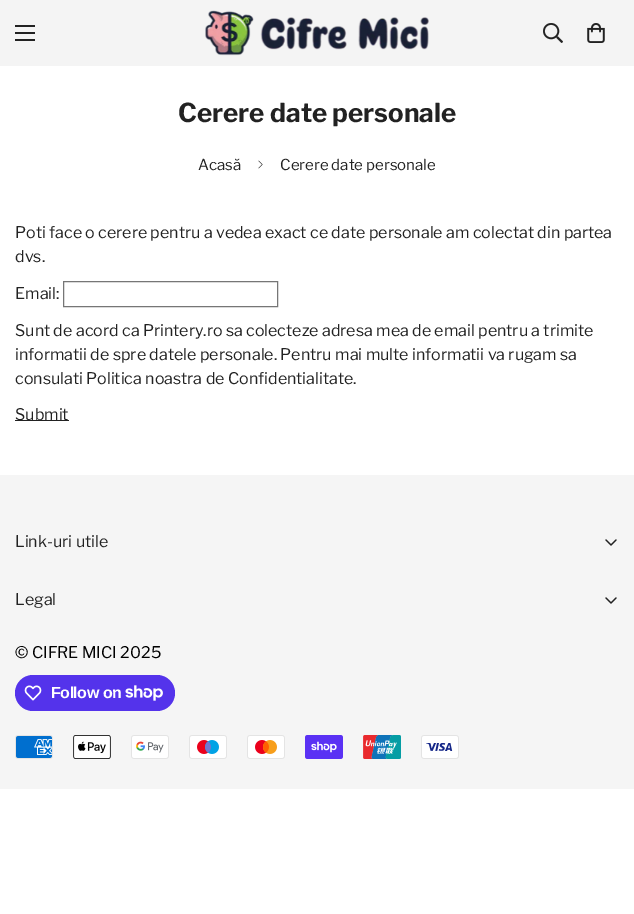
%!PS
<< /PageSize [634 914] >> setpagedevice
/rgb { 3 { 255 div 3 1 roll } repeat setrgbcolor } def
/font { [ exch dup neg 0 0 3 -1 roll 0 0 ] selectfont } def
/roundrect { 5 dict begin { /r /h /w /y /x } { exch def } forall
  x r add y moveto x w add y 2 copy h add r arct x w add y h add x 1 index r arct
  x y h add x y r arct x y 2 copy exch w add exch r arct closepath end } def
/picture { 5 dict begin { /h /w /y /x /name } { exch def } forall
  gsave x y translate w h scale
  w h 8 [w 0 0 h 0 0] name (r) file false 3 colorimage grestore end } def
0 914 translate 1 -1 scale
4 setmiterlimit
255 255 255 rgb
0 0 634 914 rectfill
[
  [0 0 634 66 244 244 244]
  [15 32 20 2 34 34 34]
  [15 25 20 2 34 34 34]
  [15 39 20 2 34 34 34]
] { aload pop rgb rectfill } forall
(img/1.rgb) 205 10 224 46 picture
(img/2.rgb) 543 23 20 20 picture
(img/3.rgb) 587 23 18 20 picture
(img/4.rgb) 258 160 5 9 picture
118 118 118 rgb
63.5 281.5 214 25 rectstroke
34 34 34 rgb
15 420 54 1 rectfill
245 245 245 rgb
0 475 634 314 rectfill
(img/5.rgb) 605 539 12 7 picture
(img/5.rgb) 605 597 12 7 picture
84 51 235 rgb
15 675 160 36 18 roundrect fill
(img/6.rgb) 24 685 18 16 picture
(img/7.rgb) 125 685 38 16 picture
(img/8.rgb) 15 735 38 24 picture
(img/9.rgb) 73 735 38 24 picture
(img/10.rgb) 131 735 38 24 picture
(img/11.rgb) 189 735 38 24 picture
(img/12.rgb) 247 735 38 24 picture
(img/13.rgb) 305 735 38 24 picture
(img/14.rgb) 363 735 38 24 picture
(img/15.rgb) 421 735 38 24 picture
/LibreFranklin-Bold 26 font
34 34 34 rgb
178 122 moveto (Cerere date personale) show
/LibreFranklin-Regular 15 font
198 170 moveto (Acasă) show
280 170 moveto (Cerere date personale) show
/LibreFranklin-Regular 16 font
[
  [(Poti face o cerere pentru a vedea exact ce date personale am colectat din partea) 15 238]
  [(dvs.) 15 262]
  [(Email:) 15 299]
  [(Sunt de acord ca Printery.ro sa colecteze adresa mea de email pentru a trimite) 15 336]
  [(informatii de spre datele personale. Pentru mai multe informatii va rugam sa) 15 360]
  [(consulati Politica noastra de Confidentialitate.) 15 384]
  [(Submit) 15 420]
  [(Link-uri utile) 15 547]
  [(Legal) 15 605]
] { aload pop moveto show } forall
0 0 0 rgb
15 658 moveto (© CIFRE MICI 2025) show
/LiberationSans-Bold 16 font
255 255 255 rgb
51 698 moveto -0.5 0 (Follow on) ashow
showpage
